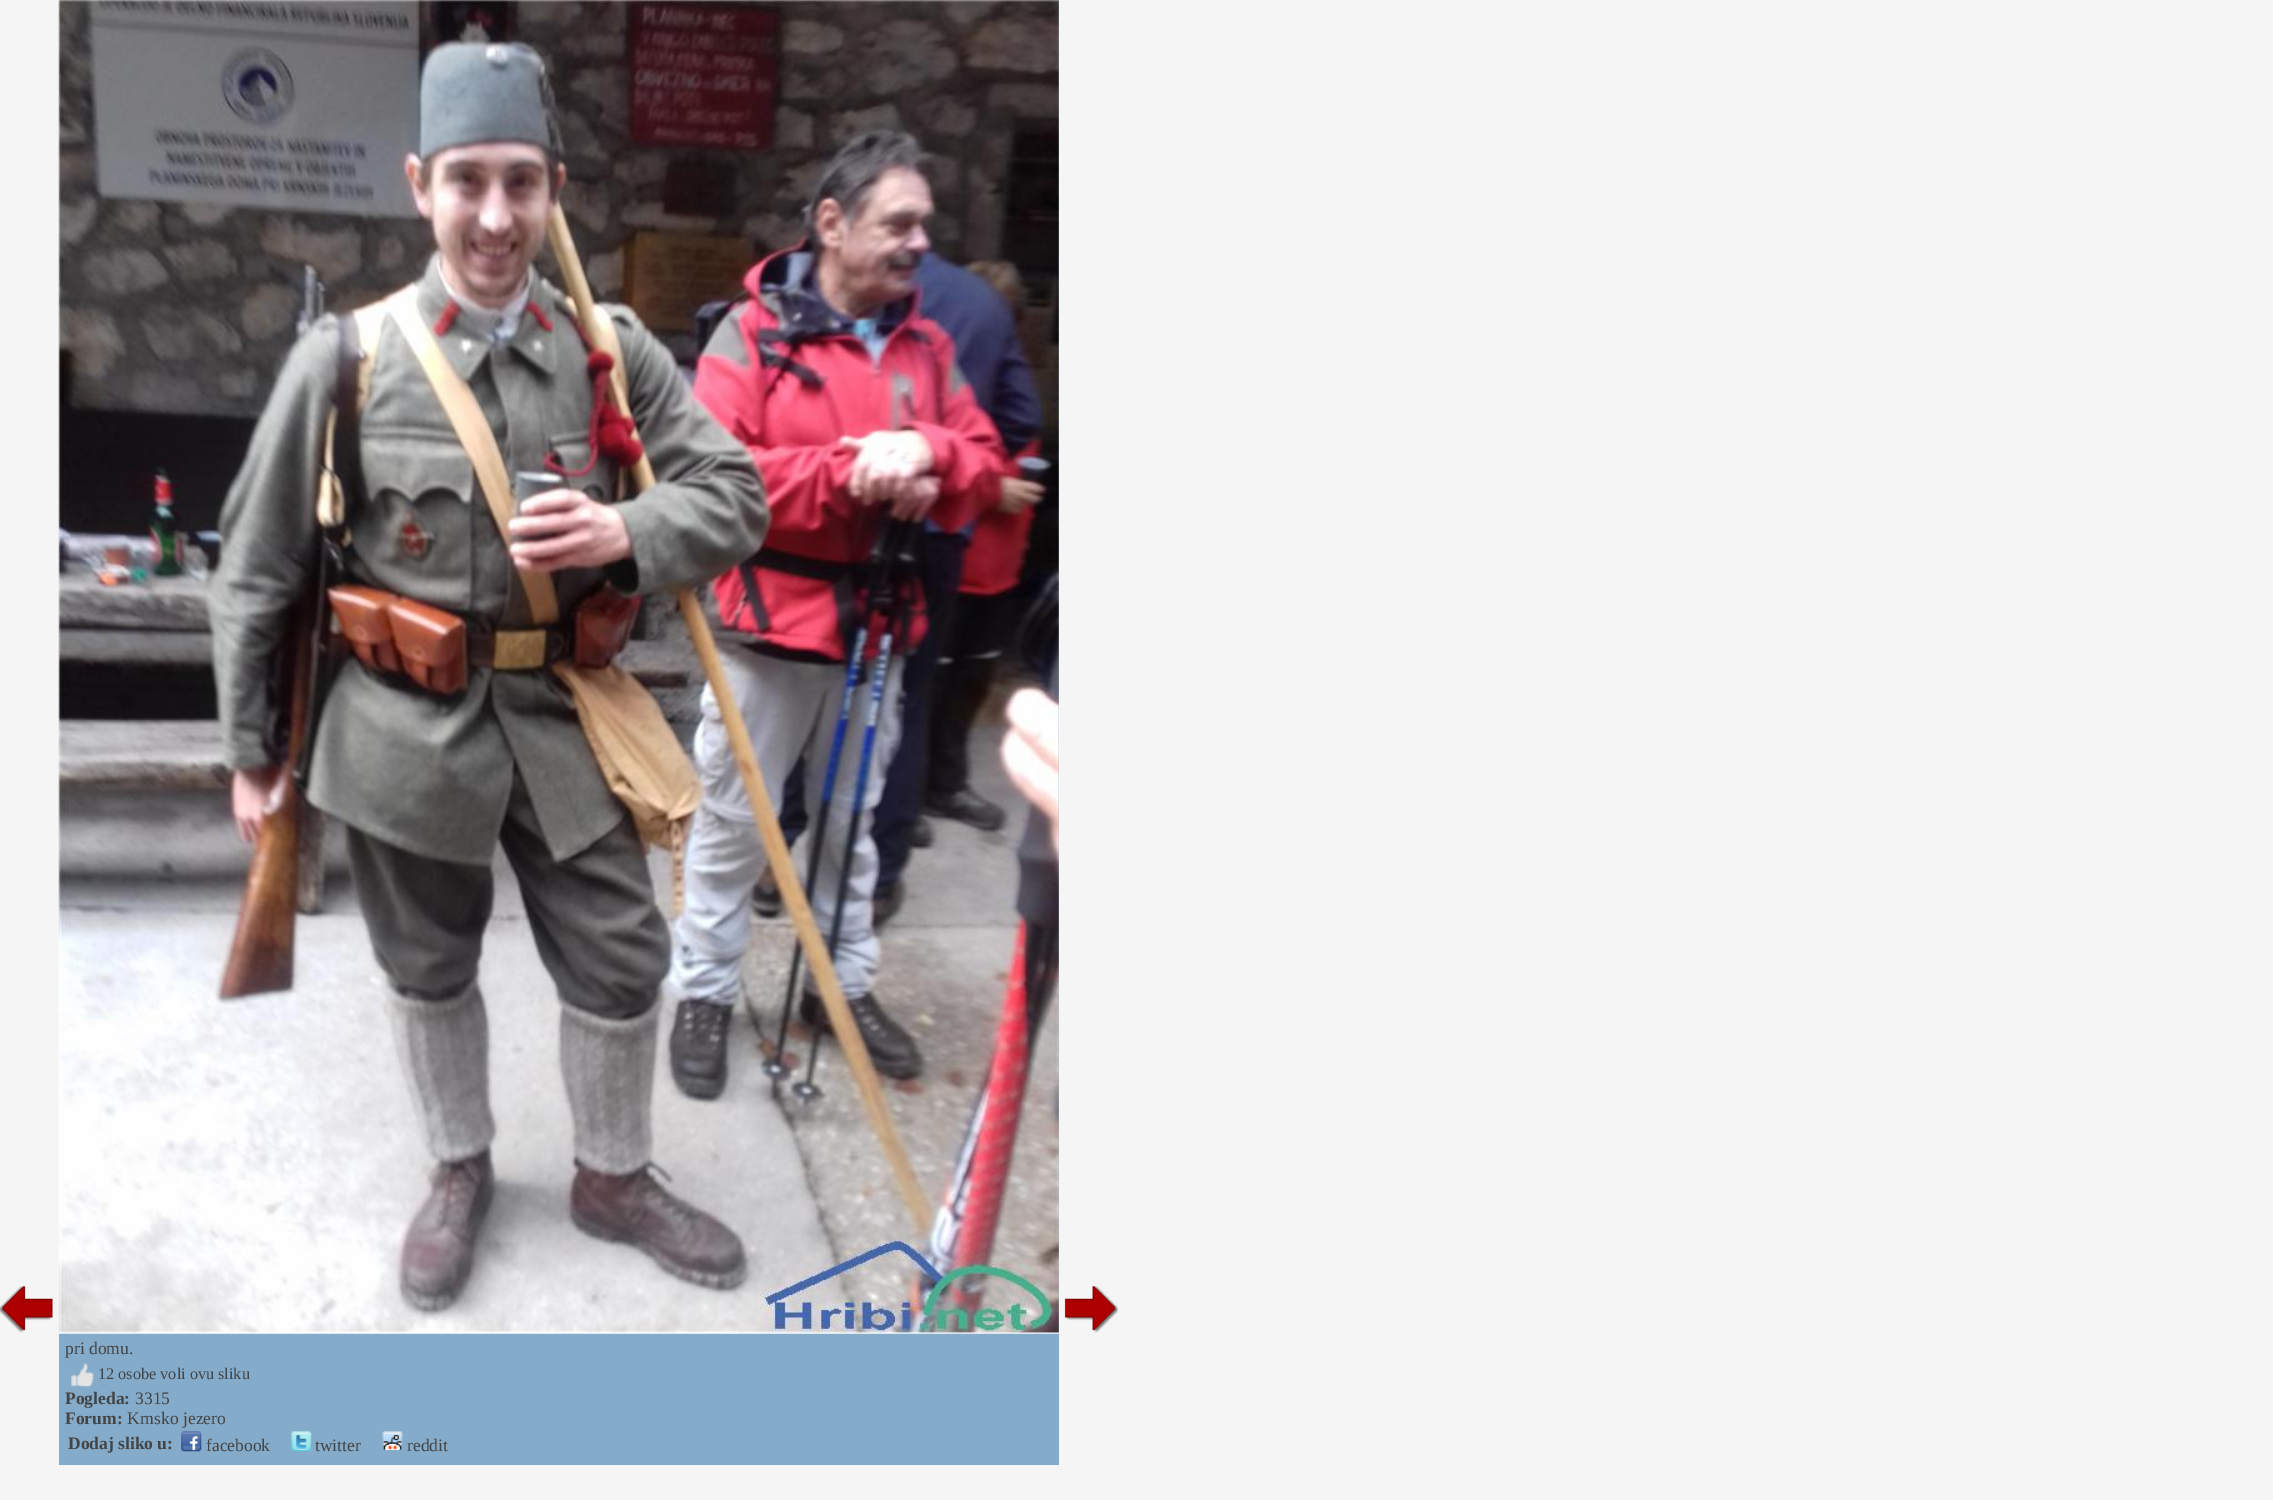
%!PS
<< /PageSize [2273 1500] >> setpagedevice
/rgb { 3 { 255 div 3 1 roll } repeat setrgbcolor } def
/font { [ exch dup neg 0 0 3 -1 roll 0 0 ] selectfont } def
/picture { 5 dict begin { /h /w /y /x /name } { exch def } forall
  gsave x y translate w h scale
  w h 8 [w 0 0 h 0 0] name (r) file false 3 colorimage grestore end } def
0 1500 translate 1 -1 scale
4 setmiterlimit
245 245 245 rgb
0 0 2273 1500 rectfill
(img/1.rgb) 0 1286 53 47 picture
(img/2.rgb) 1064 1286 54 47 picture
133 171 202 rgb
59 0 1000 1465 rectfill
(img/3.rgb) 58 0 1001 1334 picture
(img/4.rgb) 71 1363 23 24 picture
(img/5.rgb) 181 1431 21 21 picture
(img/6.rgb) 291 1431 21 21 picture
(img/7.rgb) 382 1431 21 20 picture
/LiberationSerif-Regular 17.5 font
68 68 68 rgb
65 1354 moveto (pri domu.) show
/LiberationSerif-Regular 16.25 font
98 1379 moveto (12 osobe voli ovu sliku) show
/LiberationSerif-Bold 17.5 font
65 1404 moveto (Pogleda:) show
/LiberationSerif-Regular 17.5 font
135 1404 moveto (3315) show
/LiberationSerif-Bold 17.5 font
65 1424 moveto (Forum:) show
/LiberationSerif-Regular 17.5 font
127 1424 moveto (Krnsko jezero) show
/LiberationSerif-Bold 17.5 font
68 1449 moveto (Dodaj sliko u:) show
/LiberationSerif-Regular 17.5 font
[
  [(facebook) 206 1451]
  [(twitter) 315 1451]
  [(reddit) 407 1451]
] { aload pop moveto show } forall
showpage
